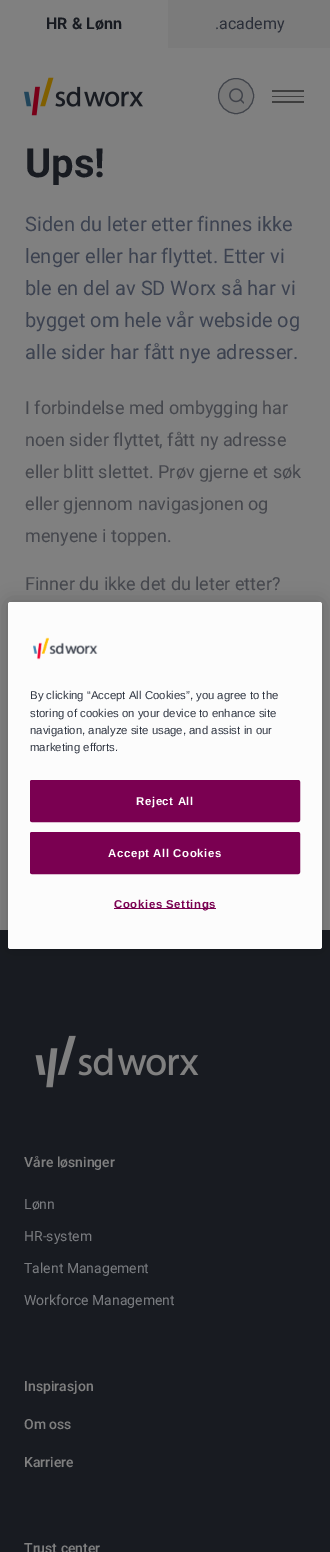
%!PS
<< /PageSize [330 1552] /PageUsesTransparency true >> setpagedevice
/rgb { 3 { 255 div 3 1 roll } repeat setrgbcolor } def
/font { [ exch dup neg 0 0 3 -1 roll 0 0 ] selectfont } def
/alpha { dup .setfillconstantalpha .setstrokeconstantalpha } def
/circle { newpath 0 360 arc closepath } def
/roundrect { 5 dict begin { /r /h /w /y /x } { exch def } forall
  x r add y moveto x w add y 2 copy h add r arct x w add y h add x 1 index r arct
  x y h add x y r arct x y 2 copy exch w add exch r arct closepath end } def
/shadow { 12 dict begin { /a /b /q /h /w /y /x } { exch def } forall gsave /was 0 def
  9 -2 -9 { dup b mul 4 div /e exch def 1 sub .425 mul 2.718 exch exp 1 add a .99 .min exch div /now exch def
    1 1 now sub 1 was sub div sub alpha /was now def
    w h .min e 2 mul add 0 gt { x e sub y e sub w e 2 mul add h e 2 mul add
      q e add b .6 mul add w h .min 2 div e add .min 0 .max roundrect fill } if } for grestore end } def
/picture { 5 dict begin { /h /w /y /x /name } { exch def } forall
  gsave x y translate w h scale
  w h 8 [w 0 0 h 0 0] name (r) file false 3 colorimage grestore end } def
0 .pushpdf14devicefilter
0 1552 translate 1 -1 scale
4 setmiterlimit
128 128 128 rgb
0 0 330 1552 rectfill
123 123 123 rgb
168 0 162 48 rectfill
(img/1.rgb) 24 77 119 39 picture
120 120 120 rgb
236 96 17.5 circle gsave fill grestore
64 67 74 rgb
stroke
(img/2.rgb) 229 88 15 16 picture
[
  [272 90 32 2 62 62 62]
  [272 96 32 1 62 62 62]
  [272 101 32 2 62 62 62]
  [0 930 330 622 24 27 33]
] { aload pop rgb rectfill } forall
(img/3.rgb) 35 1035 164 53 picture
0 0 0 rgb
8 602 314 347 2.5 9 0.2 shadow
252 252 252 rgb
8 602 314 347 2.5 roundrect fill
(img/4.rgb) 33 637 65 23 picture
122 0 81 rgb
30.5 780.5 269 41 1.5 roundrect gsave fill grestore
stroke
30.5 832.5 269 41 1.5 roundrect gsave fill grestore
stroke
114 908 102 1 rectfill
/Roboto-Bold 16 font
24 27 33 rgb
46 29 moveto (HR & Lønn) show
/Roboto-Regular 16 font
43 47 57 rgb
215 29 moveto (.academy) show
/Roboto-Bold 40 font
24 27 33 rgb
25 177 moveto (Ups!) show
/Roboto-Regular 20 font
60 66 80 rgb
[
  [(Siden du leter etter finnes ikke) 25 231]
  [(lenger eller har flyttet. Etter vi) 25 263]
  [(ble en del av SD Worx så har vi) 25 295]
  [(bygget om hele vår webside og) 25 327]
  [(alle sider har fått nye adresser.) 25 359]
] { aload pop moveto show } forall
/Roboto-Regular 18 font
69 71 77 rgb
[
  [(I forbindelse med ombygging har) 25 414]
  [(noen sider flyttet, fått ny adresse) 25 446]
  [(eller blitt slettet. Prøv gjerne et søk) 25 478]
  [(eller gjennom navigasjonen og) 25 510]
  [(menyene i toppen.) 25 542]
  [(Finner du ikke det du leter etter?) 25 590]
] { aload pop moveto show } forall
/Roboto-Medium 14 font
128 128 128 rgb
24 1167 moveto (Våre løsninger) show
/Roboto-Regular 14 font
122 124 128 rgb
[
  [(Lønn) 24 1209]
  [(HR-system) 24 1241]
  [(Talent Management) 24 1273]
  [(Workforce Management) 24 1305]
] { aload pop moveto show } forall
/Roboto-Medium 14 font
128 128 128 rgb
[
  [(Inspirasjon) 24 1391]
  [(Om oss) 24 1429]
  [(Karriere) 24 1467]
  [(Trust center) 24 1553]
] { aload pop moveto show } forall
/LiberationSans-Regular 11.4 font
48 54 66 rgb
[
  [(By clicking “Accept All Cookies”, you agree to the) 30 699]
  [(storing of cookies on your device to enhance site) 30 717]
  [(navigation, analyze site usage, and assist in our) 30 734]
  [(marketing efforts.) 30 751]
] { aload pop moveto show } forall
/LiberationSans-Bold 11.4 font
255 255 255 rgb
136 805 moveto 0.6 0 (Reject All) ashow
108 857 moveto 0.6 0 (Accept All Cookies) ashow
122 0 81 rgb
114 908 moveto 0.6 0 (Cookies Settings) ashow
.poppdf14devicefilter showpage
